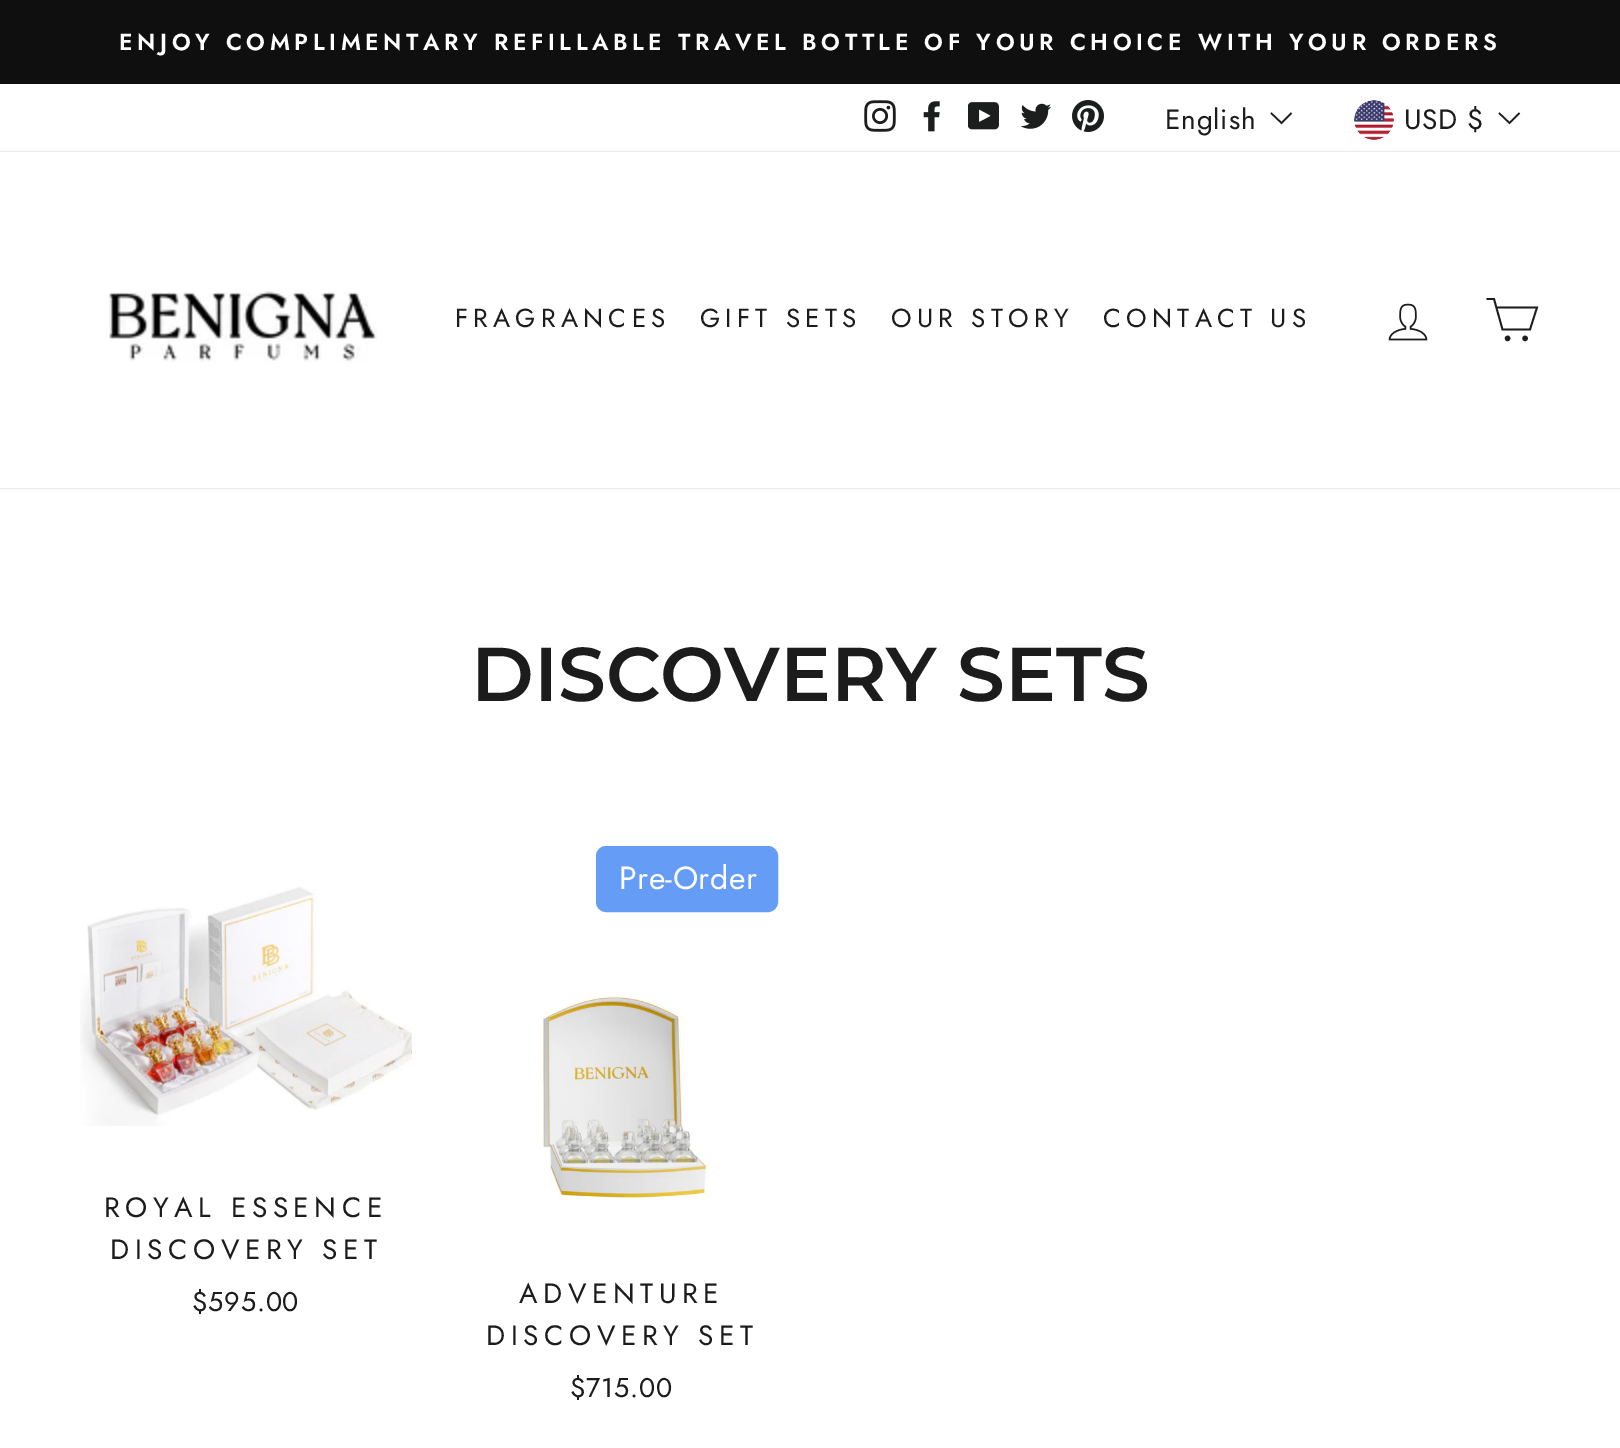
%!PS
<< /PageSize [1620 1448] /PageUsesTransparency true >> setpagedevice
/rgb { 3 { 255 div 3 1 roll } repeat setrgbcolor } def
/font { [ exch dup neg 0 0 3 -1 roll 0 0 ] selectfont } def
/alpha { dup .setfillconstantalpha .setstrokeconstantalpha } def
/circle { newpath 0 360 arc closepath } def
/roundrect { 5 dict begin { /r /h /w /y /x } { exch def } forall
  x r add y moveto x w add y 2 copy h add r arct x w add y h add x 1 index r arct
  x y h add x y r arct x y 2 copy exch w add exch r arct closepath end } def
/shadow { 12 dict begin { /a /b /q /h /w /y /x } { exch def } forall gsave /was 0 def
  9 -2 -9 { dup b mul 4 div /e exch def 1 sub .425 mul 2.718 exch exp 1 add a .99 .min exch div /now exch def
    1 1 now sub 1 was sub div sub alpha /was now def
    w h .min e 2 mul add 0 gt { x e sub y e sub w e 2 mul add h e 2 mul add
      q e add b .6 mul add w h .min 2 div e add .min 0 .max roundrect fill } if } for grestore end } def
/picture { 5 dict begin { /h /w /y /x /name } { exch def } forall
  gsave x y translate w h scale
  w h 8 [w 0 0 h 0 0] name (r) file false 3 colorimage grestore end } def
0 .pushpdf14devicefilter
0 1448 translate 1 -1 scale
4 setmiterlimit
255 255 255 rgb
0 0 1620 1448 rectfill
15 15 15 rgb
0 0 1620 84 rectfill
(img/1.rgb) 864 100 32 32 picture
(img/2.rgb) 923 101 17 31 picture
(img/3.rgb) 968 102 31 28 picture
(img/4.rgb) 1020 103 32 26 picture
(img/5.rgb) 1072 100 32 32 picture
28 29 29 rgb
1.6 setlinewidth
1271 113 moveto 1281.5 123 lineto 1291.5 113 lineto stroke
(img/6.rgb) 1354 100 40 40 picture
1499 113 moveto 1509.5 123 lineto 1519.5 113 lineto stroke
gsave
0 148 moveto 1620 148 lineto 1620 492 lineto 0 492 lineto closepath 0 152 moveto 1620 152 lineto 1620 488 lineto 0 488 lineto closepath eoclip newpath
0 0 0 rgb
0 152 1620 336 0 1 0.2 shadow
grestore
(img/7.rgb) 109 291 268 72 picture
(img/8.rgb) 1388 303 40 38 picture
1.8 setlinewidth
1496 307.5 moveto 1537 307.5 lineto 1530 329.5 lineto 1502.5 329.5 lineto 1494 299 lineto 1486.5 299 lineto stroke
1507.6 338.4 1.8 circle gsave fill grestore
stroke
1525.1 338.4 1.8 circle gsave fill grestore
stroke
(img/9.rgb) 80 886 332 240 picture
101 156 246 rgb
597 847 180 64 9 roundrect gsave fill grestore
2 setlinewidth
stroke
(img/10.rgb) 542 996 166 202 picture
/Jost-SemiBold 23.12 font
255 255 255 rgb
119 50 moveto 4.62 0 (ENJOY COMPLIMENTARY REFILLABLE TRAVEL BOTTLE OF YOUR CHOICE WITH YOUR ORDERS) ashow
/Jost-Regular 28 font
28 28 29 rgb
1165 129 moveto 0.75 0 (English) ashow
1404 129 moveto 0.75 0 (USD $) ashow
/Jost-Regular 26 font
455 327 moveto 5.25 0 (FRAGRANCES) ashow
700 327 moveto 5.25 0 (GIFT SETS) ashow
891 327 moveto 5.25 0 (OUR STORY) ashow
1103 327 moveto 5.25 0 (CONTACT US) ashow
/Montserrat-SemiBold 76 font
471 701 moveto (DISCOVERY SETS) show
/Jost-Regular 28 font
104 1217 moveto 5.6 0 (ROYAL ESSENCE) ashow
110 1259 moveto 5.6 0 (DISCOVERY SET) ashow
/Jost-Regular 27 font
192 1311 moveto 0.75 0 ($595.00) ashow
/Jost-Regular 32 font
255 255 255 rgb
619 889 moveto 0.5 0 (Pre-Order) ashow
/Jost-Regular 28 font
28 28 29 rgb
519 1303 moveto 5.6 0 (ADVENTURE) ashow
486 1345 moveto 5.6 0 (DISCOVERY SET) ashow
/Jost-Regular 27 font
570 1397 moveto 0.75 0 ($715.00) ashow
.poppdf14devicefilter showpage
